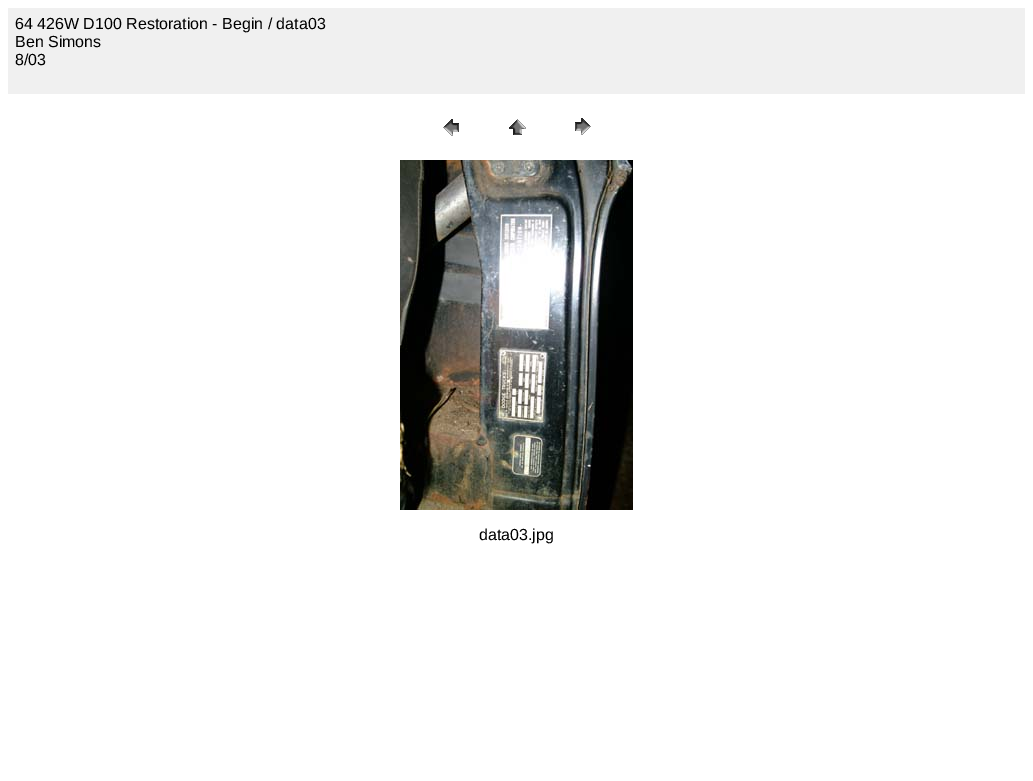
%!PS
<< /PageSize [1033 781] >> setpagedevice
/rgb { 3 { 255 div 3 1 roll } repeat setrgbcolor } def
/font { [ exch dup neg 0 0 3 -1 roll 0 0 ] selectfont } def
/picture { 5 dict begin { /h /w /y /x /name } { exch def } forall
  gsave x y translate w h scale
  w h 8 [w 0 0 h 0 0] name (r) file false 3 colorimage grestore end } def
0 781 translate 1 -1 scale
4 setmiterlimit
255 255 255 rgb
0 0 1033 781 rectfill
240 240 240 rgb
8 8 1017 86 rectfill
(img/1.rgb) 443 119 16 17 picture
(img/2.rgb) 509 119 17 16 picture
(img/3.rgb) 575 118 16 17 picture
(img/4.rgb) 400 160 233 350 picture
/LiberationSans-Regular 16 font
0 0 0 rgb
[
  [(64 426W D100 Restoration - Begin / data03) 15 29]
  [(Ben Simons) 15 47]
  [(8/03) 15 65]
  [(data03.jpg) 479 540]
] { aload pop moveto show } forall
showpage
